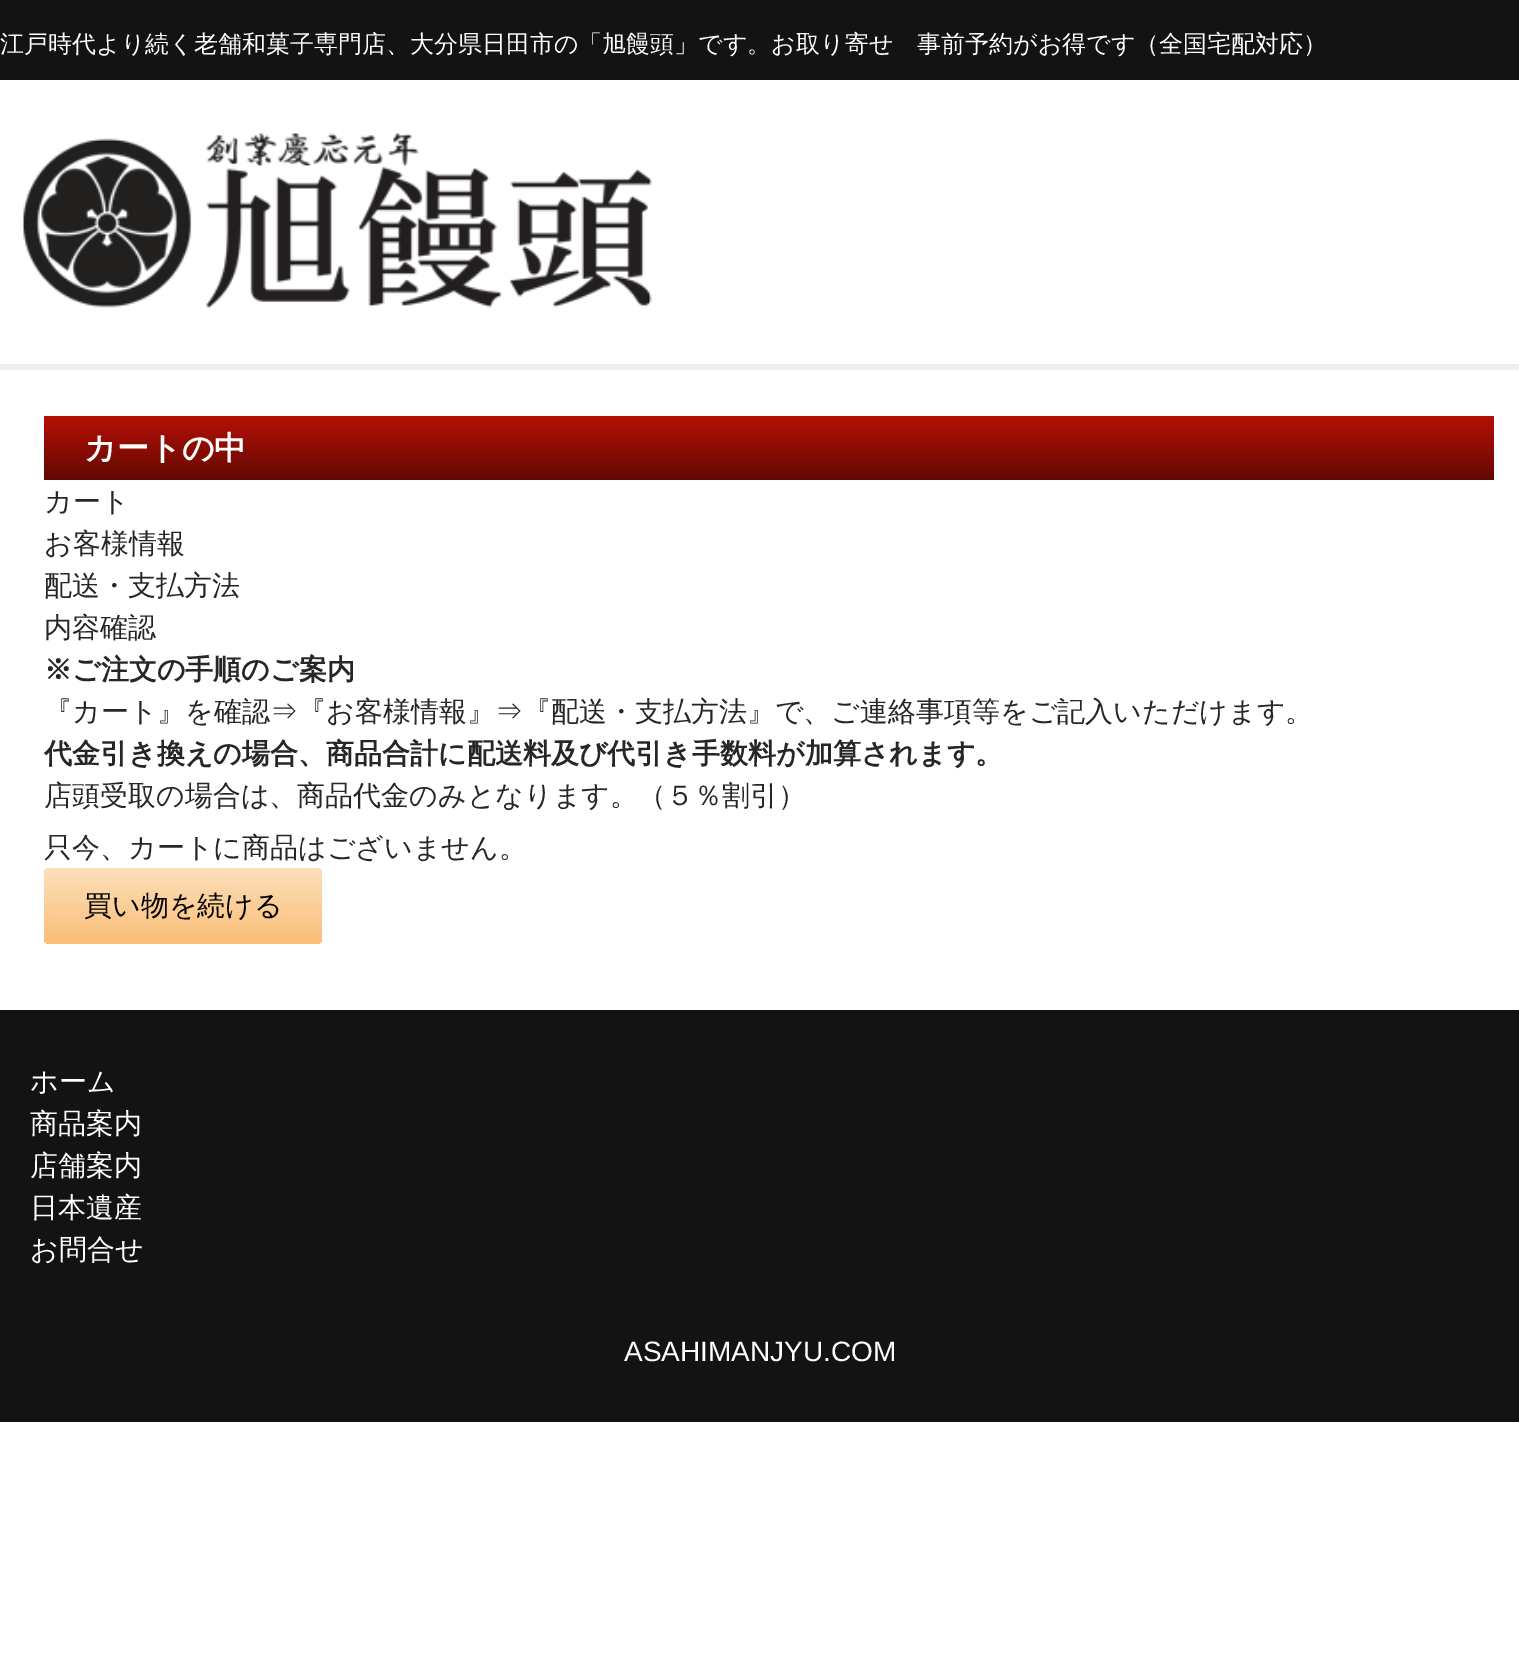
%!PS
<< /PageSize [1519 1653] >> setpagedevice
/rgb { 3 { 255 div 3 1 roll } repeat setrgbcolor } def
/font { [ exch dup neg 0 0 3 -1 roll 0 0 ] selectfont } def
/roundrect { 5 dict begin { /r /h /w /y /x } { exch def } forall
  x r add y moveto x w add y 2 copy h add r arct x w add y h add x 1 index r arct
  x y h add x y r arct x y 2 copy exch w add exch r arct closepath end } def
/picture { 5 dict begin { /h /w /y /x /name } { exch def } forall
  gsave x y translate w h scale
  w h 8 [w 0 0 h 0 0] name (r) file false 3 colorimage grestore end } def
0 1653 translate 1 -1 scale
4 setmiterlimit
255 255 255 rgb
0 0 1519 1653 rectfill
239 239 239 rgb
0 364 1519 6 rectfill
19 19 19 rgb
0 0 1519 80 rectfill
(img/1.rgb) 22 133 630 175 picture
gsave 44 416 moveto 1494 416 lineto 1494 480 lineto 44 480 lineto closepath clip newpath
<< /ShadingType 2 /ColorSpace /DeviceRGB /Coords [769 416 769 480] /Extend [true true] /Function << /FunctionType 2 /Domain [0 1] /C0 [0.71 0.063 0.02] /C1 [0.384 0.035 0.012] /N 1 >> >> shfill grestore
gsave 44 868 278 76 6 roundrect clip newpath
<< /ShadingType 2 /ColorSpace /DeviceRGB /Coords [183 868 183 944] /Extend [true true] /Function << /FunctionType 2 /Domain [0 1] /C0 [0.992 0.875 0.733] /C1 [0.98 0.745 0.463] /N 1 >> >> shfill grestore
0 1010 1519 412 rectfill
/WenQuanYiZenHei-Medium 24 font
255 255 255 rgb
0 52 moveto (江戸時代より続く老舗和菓子専門店、大分県日田市の「旭饅頭」です。お取り寄せ　事前予約がお得です（全国宅配対応）) show
/WenQuanYiZenHei-Bold 32 font
84 459 moveto (カートの中) show
/WenQuanYiZenHei-Medium 28 font
38 38 38 rgb
[
  [(カート) 44 511]
  [(お客様情報) 44 553]
  [(配送・支払方法) 44 595]
  [(内容確認) 44 637]
] { aload pop moveto show } forall
/WenQuanYiZenHei-Bold 28 font
44 679 moveto (※ご注文の手順のご案内) show
/WenQuanYiZenHei-Medium 28 font
44 721 moveto (『カート』を確認⇒『お客様情報』⇒『配送・支払方法』で、ご連絡事項等をご記入いただけます。) show
/WenQuanYiZenHei-Bold 28 font
44 763 moveto (代金引き換えの場合、商品合計に配送料及び代引き手数料が加算されます。) show
/WenQuanYiZenHei-Medium 28 font
44 805 moveto (店頭受取の場合は、商品代金のみとなります。（５％割引）) show
44 857 moveto (只今、カートに商品はございません。) show
0 0 0 rgb
84 915 moveto (買い物を続ける) show
255 255 255 rgb
[
  [(ホーム) 30 1091]
  [(商品案内) 30 1133]
  [(店舗案内) 30 1175]
  [(日本遺産) 30 1217]
  [(お問合せ) 30 1259]
] { aload pop moveto show } forall
/LiberationSans-Regular 28 font
624 1361 moveto (ASAHIMANJYU.COM) show
showpage
